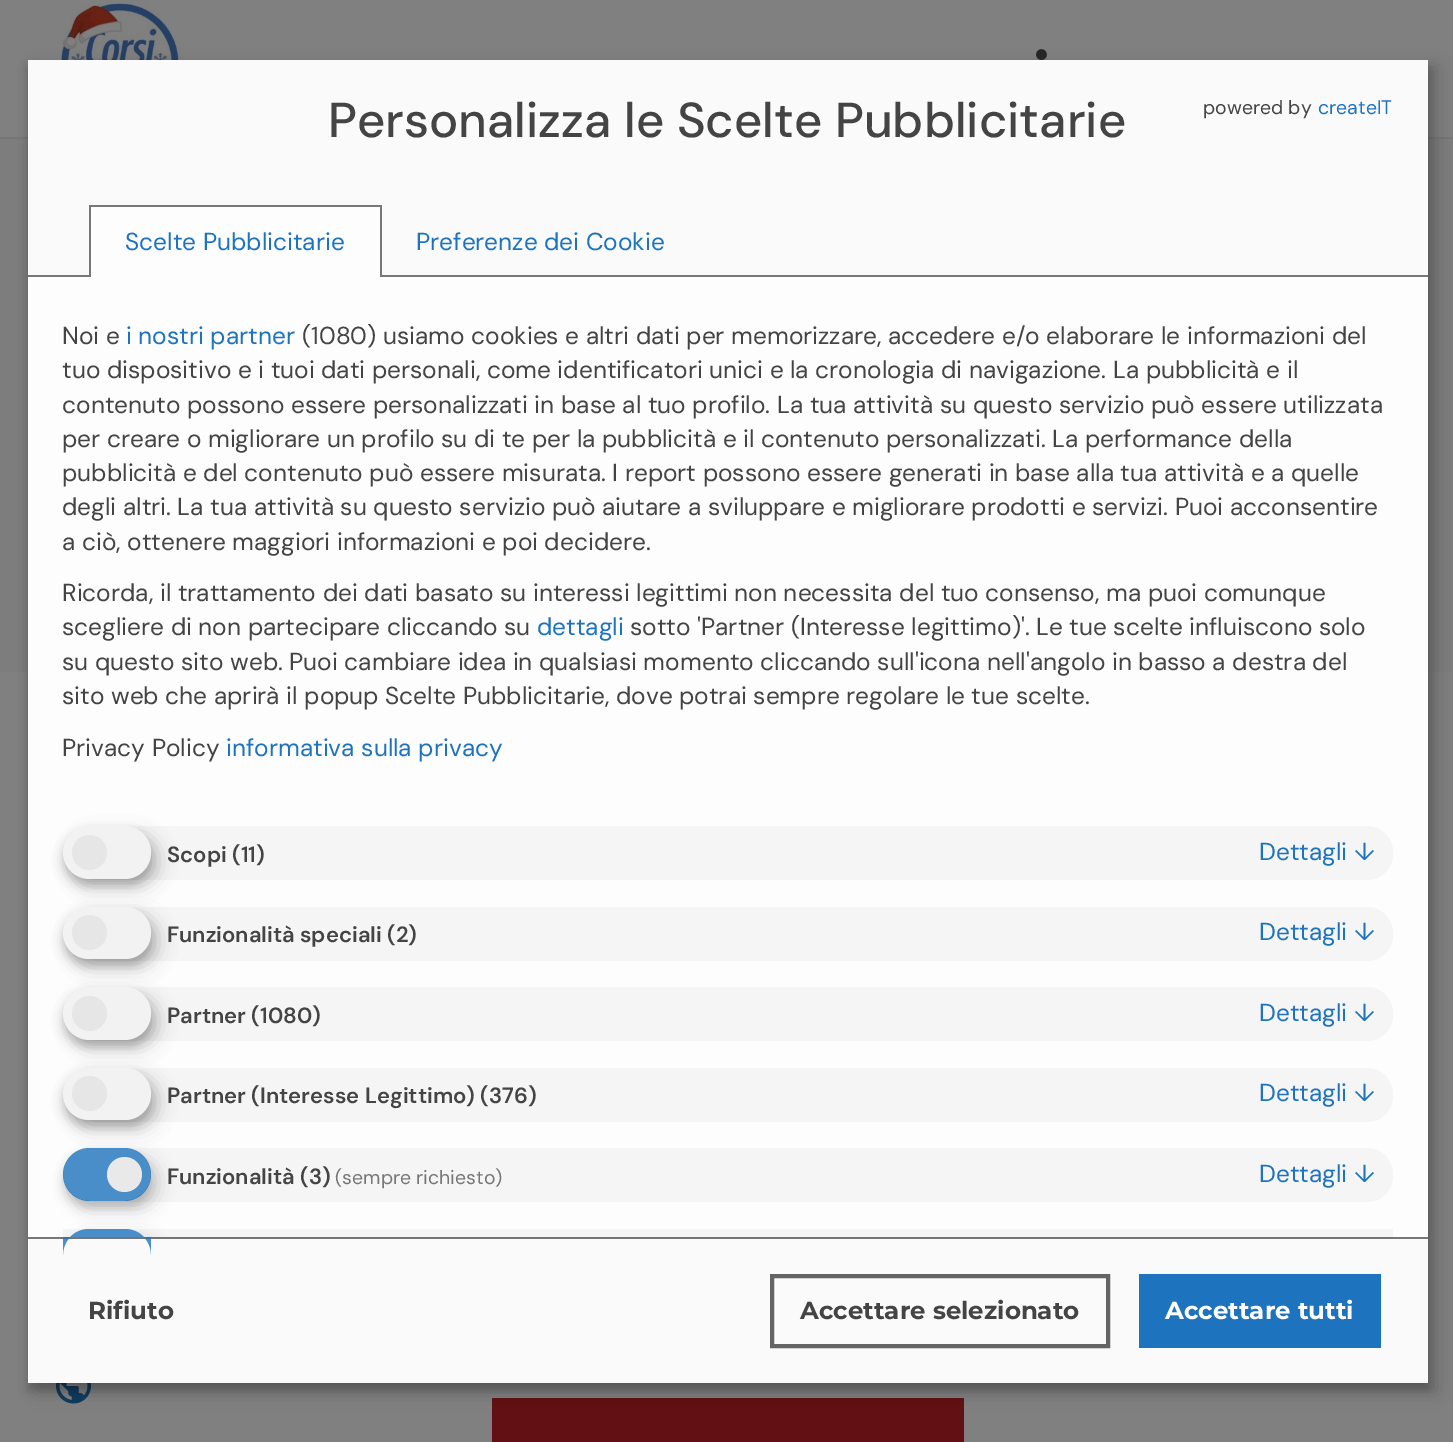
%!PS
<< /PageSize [1453 1442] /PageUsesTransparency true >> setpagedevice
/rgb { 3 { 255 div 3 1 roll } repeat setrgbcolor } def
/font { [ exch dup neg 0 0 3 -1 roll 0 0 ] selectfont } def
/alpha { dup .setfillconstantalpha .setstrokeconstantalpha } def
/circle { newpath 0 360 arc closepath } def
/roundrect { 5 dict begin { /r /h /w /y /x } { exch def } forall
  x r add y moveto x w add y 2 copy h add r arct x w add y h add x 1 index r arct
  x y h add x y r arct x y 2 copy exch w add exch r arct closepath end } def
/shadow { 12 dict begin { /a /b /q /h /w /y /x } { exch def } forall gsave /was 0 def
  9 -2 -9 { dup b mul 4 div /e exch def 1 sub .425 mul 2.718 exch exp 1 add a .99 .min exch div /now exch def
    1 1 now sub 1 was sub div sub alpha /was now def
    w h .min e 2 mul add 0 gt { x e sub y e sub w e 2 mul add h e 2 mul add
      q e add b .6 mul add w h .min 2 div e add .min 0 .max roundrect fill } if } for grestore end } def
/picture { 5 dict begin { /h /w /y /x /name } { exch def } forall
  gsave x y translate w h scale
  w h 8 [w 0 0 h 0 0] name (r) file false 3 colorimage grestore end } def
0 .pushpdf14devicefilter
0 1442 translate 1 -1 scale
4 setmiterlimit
125 125 126 rgb
0 0 1453 1442 rectfill
128 128 128 rgb
0 0 1453 137 rectfill
119 119 119 rgb
0 137 1453 2 rectfill
(img/1.rgb) 60 0 122 60 picture
(img/2.rgb) 1036 49 11 11 picture
128 128 128 rgb
0 672 1453 770 rectfill
98 16 19 rgb
492 1398 472 44 rectfill
(img/3.rgb) 56 1383 35 21 picture
0 0 0 rgb
37 68 1400 1323 0 9 0.19 shadow
28 67 1400 1323 0 5 0.2 shadow
250 250 250 rgb
28 60 1400 1323 rectfill
119 119 119 rgb
28 1237 1400 2 rectfill
100 100 100 rgb
4 setlinewidth
772 1276 336 70 rectstroke
[
  [1139 1274 242 74 30 115 190]
  [28 275 1400 2 119 119 119]
  [91 207 289 70 253 253 253]
  [89 205 293 2 119 119 119]
  [380 205 2 73 119 119 119]
  [89 205 2 73 119 119 119]
  [28 277 1400 960 253 253 253]
] { aload pop rgb rectfill } forall
245 245 245 rgb
63 826 1330 54 26 roundrect fill
0 0 0 rgb
72 835 87 52 26 9 0.19 shadow
63 833 88 53 26.5 5 0.2 shadow
242 242 242 rgb
63 826 88 53 26.5 roundrect fill
230 230 230 rgb
89.5 852.5 17.5 circle fill
245 245 245 rgb
63 907 1330 54 26 roundrect fill
0 0 0 rgb
72 915 87 53 26.5 9 0.19 shadow
63 914 88 52 26 5 0.2 shadow
242 242 242 rgb
63 907 88 52 26 roundrect fill
230 230 230 rgb
89.5 932.5 17.5 circle fill
245 245 245 rgb
63 987 1330 54 26 roundrect fill
0 0 0 rgb
72 996 87 52 26 9 0.19 shadow
63 994 88 53 26.5 5 0.2 shadow
242 242 242 rgb
63 987 88 53 26.5 roundrect fill
230 230 230 rgb
89.5 1013.5 17.5 circle fill
245 245 245 rgb
63 1068 1330 54 26 roundrect fill
0 0 0 rgb
72 1076 87 53 26.5 9 0.19 shadow
63 1075 88 52 26 5 0.2 shadow
242 242 242 rgb
63 1068 88 52 26 roundrect fill
230 230 230 rgb
89.5 1093.5 17.5 circle fill
245 245 245 rgb
63 1148 1330 54 26 roundrect fill
gsave
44 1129 moveto 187 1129 lineto 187 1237 lineto 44 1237 lineto closepath 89.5 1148 moveto 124.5 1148 lineto 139 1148 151 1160 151 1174.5 curveto 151 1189 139 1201 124.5 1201 curveto 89.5 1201 lineto 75 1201 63 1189 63 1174.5 curveto 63 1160 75 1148 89.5 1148 curveto closepath eoclip newpath
0 0 0 rgb
72 1157 87 52 26 9 0.15 shadow
grestore
gsave
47 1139 moveto 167 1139 lineto 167 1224 lineto 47 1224 lineto closepath 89.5 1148 moveto 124.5 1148 lineto 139 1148 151 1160 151 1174.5 curveto 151 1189 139 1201 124.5 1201 curveto 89.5 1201 lineto 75 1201 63 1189 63 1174.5 curveto 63 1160 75 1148 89.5 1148 curveto closepath eoclip newpath
0 0 0 rgb
63 1155 88 53 26.5 5 0.16 shadow
grestore
0.8 alpha
30 115 190 rgb
63 1148 88 53 26.5 roundrect fill
1 alpha
233 233 233 rgb
124.5 1174.5 17.5 circle fill
0.03 alpha
0 0 0 rgb
63 1229 1330 9 rectfill
gsave
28 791 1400 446 rectclip
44 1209 moveto 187 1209 lineto 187 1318 lineto 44 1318 lineto closepath 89 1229 moveto 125 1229 lineto 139.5 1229 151 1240.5 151 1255 curveto 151 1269.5 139.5 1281 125 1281 curveto 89 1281 lineto 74.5 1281 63 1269.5 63 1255 curveto 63 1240.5 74.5 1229 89 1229 curveto closepath eoclip newpath
1 alpha
72 1237 87 53 26.5 9 0.15 shadow
grestore
0.8 alpha
30 115 190 rgb
89 1229 moveto 125 1229 lineto 139.5 1229 151 1240.5 151 1255 curveto 151 1237 lineto 63 1237 lineto 63 1255 lineto 63 1240.5 74.5 1229 89 1229 curveto closepath fill
/DMSans-Regular 19.5 font
1 alpha
68 68 68 rgb
1203 114 moveto (powered by) show
30 115 190 rgb
1318 114 moveto (createIT) show
/Montserrat-Bold 24.5 font
68 68 68 rgb
88 1319 moveto (Rifiuto) show
800 1319 moveto (Accettare selezionato) show
255 255 255 rgb
1165 1319 moveto (Accettare tutti) show
/DMSans-Medium 49 font
68 68 68 rgb
328 137 moveto (Personalizza le Scelte Pubblicitarie) show
/DMSans-Regular 24.5 font
30 115 190 rgb
125 250 moveto (Scelte Pubblicitarie) show
416 250 moveto (Preferenze dei Cookie) show
68 68 68 rgb
62 344 moveto (Noi e) show
30 115 190 rgb
126 344 moveto (i nostri partner) show
68 68 68 rgb
[
  [(\(1080\) usiamo cookies e altri dati per memorizzare, accedere e/o elaborare le informazioni del) 302 344]
  [(tuo dispositivo e i tuoi dati personali, come identificatori unici e la cronologia di navigazione. La pubblicità e il) 62 378]
  [(contenuto possono essere personalizzati in base al tuo profilo. La tua attività su questo servizio può essere utilizzata) 62 413]
  [(per creare o migliorare un profilo su di te per la pubblicità e il contenuto personalizzati. La performance della) 62 447]
  [(pubblicità e del contenuto può essere misurata. I report possono essere generati in base alla tua attività e a quelle) 62 481]
  [(degli altri. La tua attività su questo servizio può aiutare a sviluppare e migliorare prodotti e servizi. Puoi acconsentire) 62 515]
  [(a ciò, ottenere maggiori informazioni e poi decidere.) 62 550]
  [(Ricorda, il trattamento dei dati basato su interessi legittimi non necessita del tuo consenso, ma puoi comunque) 62 601]
  [(scegliere di non partecipare cliccando su) 62 635]
] { aload pop moveto show } forall
30 115 190 rgb
537 635 moveto (dettagli) show
68 68 68 rgb
[
  [(sotto 'Partner \(Interesse legittimo\)'. Le tue scelte influiscono solo) 630 635]
  [(su questo sito web. Puoi cambiare idea in qualsiasi momento cliccando sull'icona nell'angolo in basso a destra del) 62 670]
  [(sito web che aprirà il popup Scelte Pubblicitarie, dove potrai sempre regolare le tue scelte.) 62 704]
  [(Privacy Policy) 62 756]
] { aload pop moveto show } forall
30 115 190 rgb
226 756 moveto (informativa sulla privacy) show
/DMSans-SemiBold 22 font
68 68 68 rgb
167 862 moveto (Scopi \(11\)) show
/DMSans-Regular 24.5 font
30 115 190 rgb
1259 860 moveto (Dettagli ↓) show
/DMSans-SemiBold 22 font
68 68 68 rgb
167 942 moveto (Funzionalità speciali \(2\)) show
/DMSans-Regular 24.5 font
30 115 190 rgb
1259 940 moveto (Dettagli ↓) show
/DMSans-SemiBold 22 font
68 68 68 rgb
167 1023 moveto (Partner \(1080\)) show
/DMSans-Regular 24.5 font
30 115 190 rgb
1259 1021 moveto (Dettagli ↓) show
/DMSans-SemiBold 22 font
68 68 68 rgb
167 1103 moveto (Partner \(Interesse Legittimo\) \(376\)) show
/DMSans-Regular 24.5 font
30 115 190 rgb
1259 1101 moveto (Dettagli ↓) show
/DMSans-SemiBold 22 font
68 68 68 rgb
167 1184 moveto (Funzionalità \(3\)) show
/DMSans-Regular 19.5 font
119 119 119 rgb
335 1184 moveto (\(sempre richiesto\)) show
/DMSans-Regular 24.5 font
30 115 190 rgb
1259 1182 moveto (Dettagli ↓) show
.poppdf14devicefilter showpage
